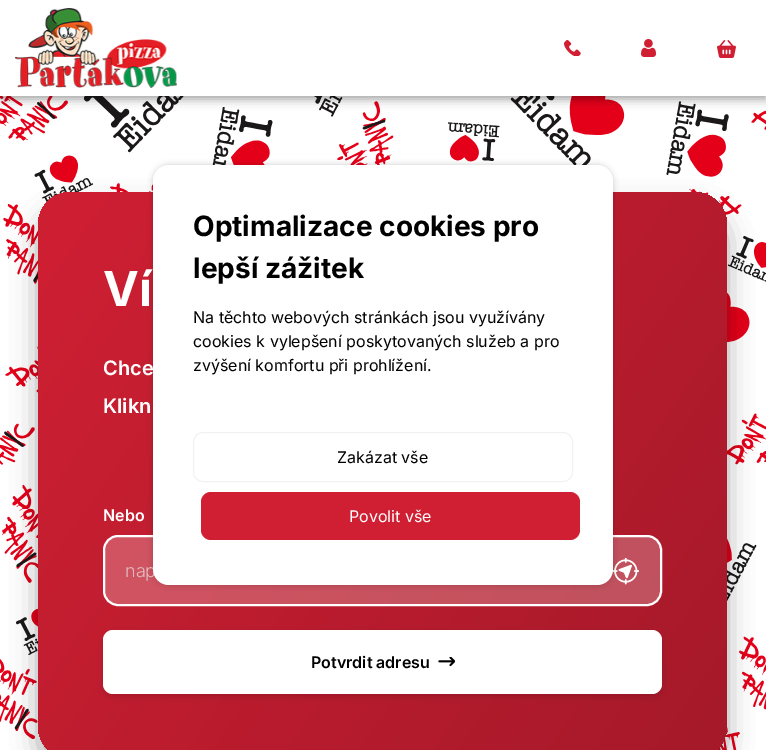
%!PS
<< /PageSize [766 750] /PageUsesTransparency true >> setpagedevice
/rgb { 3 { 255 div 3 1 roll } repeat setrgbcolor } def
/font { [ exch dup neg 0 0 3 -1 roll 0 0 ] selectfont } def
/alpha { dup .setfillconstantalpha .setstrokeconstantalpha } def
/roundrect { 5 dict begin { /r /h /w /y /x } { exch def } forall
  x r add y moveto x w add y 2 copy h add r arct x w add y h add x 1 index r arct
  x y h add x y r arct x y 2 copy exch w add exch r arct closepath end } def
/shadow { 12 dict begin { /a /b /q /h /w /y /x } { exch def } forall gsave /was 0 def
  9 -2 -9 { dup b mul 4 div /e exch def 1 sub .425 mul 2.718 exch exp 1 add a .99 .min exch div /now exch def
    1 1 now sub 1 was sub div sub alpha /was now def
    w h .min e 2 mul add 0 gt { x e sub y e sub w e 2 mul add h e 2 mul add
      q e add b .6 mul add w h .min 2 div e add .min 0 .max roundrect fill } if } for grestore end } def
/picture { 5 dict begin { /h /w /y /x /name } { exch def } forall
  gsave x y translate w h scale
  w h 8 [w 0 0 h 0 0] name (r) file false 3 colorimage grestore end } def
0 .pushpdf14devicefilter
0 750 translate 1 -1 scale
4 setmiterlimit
255 255 255 rgb
0 0 766 750 rectfill
(img/5.rgb) 0 96 766 654 picture
0 0 0 rgb
0 3 766 96 0 5 0.39 shadow
255 255 255 rgb
0 0 766 96 rectfill
(img/1.rgb) 15 8 162 80 picture
(img/2.rgb) 564 40 17 16 picture
(img/3.rgb) 641 39 15 18 picture
(img/4.rgb) 717 40 19 18 picture
0 0 0 rgb
38 208 689 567 33 13 0.33 shadow
gsave 38 192 689 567 33 roundrect clip newpath
<< /ShadingType 2 /ColorSpace /DeviceRGB /Coords [18 220 747 730] /Extend [true true] /Function << /FunctionType 2 /Domain [0 1] /C0 [0.816 0.122 0.2] /C1 [0.647 0.098 0.161] /N 1 >> >> shfill grestore
0.24 alpha
255 255 255 rgb
104 536 557 69 14 roundrect fill
1 alpha
2 setlinewidth
104 536 557 69 14 roundrect stroke
(img/6.rgb) 612 558 27 27 picture
0 0 0 rgb
153 165 460 420 16 3 0.2 shadow
103 633 559 64 10 3 0.12 shadow
255 255 255 rgb
103 630 559 64 10 roundrect fill
(img/7.rgb) 438 657 17 10 picture
/Inter-Bold 48 font
103 306 moveto (Ví) show
/Inter-SemiBold 20 font
103 375 moveto (Chce) show
103 413 moveto (Klikn) show
/Inter-SemiBold 16 font
103 521 moveto (Nebo) show
/Inter-Light 18 font
224 187 191 rgb
125 577 moveto (nap) show
255 255 255 rgb
153 165 460 420 16 roundrect fill
208 31 51 rgb
201 492 379 48 10 roundrect fill
/Inter-Regular 16 font
255 255 255 rgb
349 522 moveto (Povolit vše) show
241 241 241 rgb
1 setlinewidth
193.5 432.5 379 49 9.5 roundrect stroke
0 0 0 rgb
[
  [(Zakázat vše) 337 463]
  [(zvýšení komfortu při prohlížení.) 193 371]
  [(cookies k vylepšení poskytovaných služeb a pro) 193 347]
  [(Na těchto webových stránkách jsou využívány) 193 323]
] { aload pop moveto show } forall
/Inter-Bold 28 font
193 278 moveto (lepší zážitek) show
193 236 moveto (Optimalizace cookies pro) show
/Inter-SemiBold 16 font
311 668 moveto (Potvrdit adresu) show
.poppdf14devicefilter showpage
